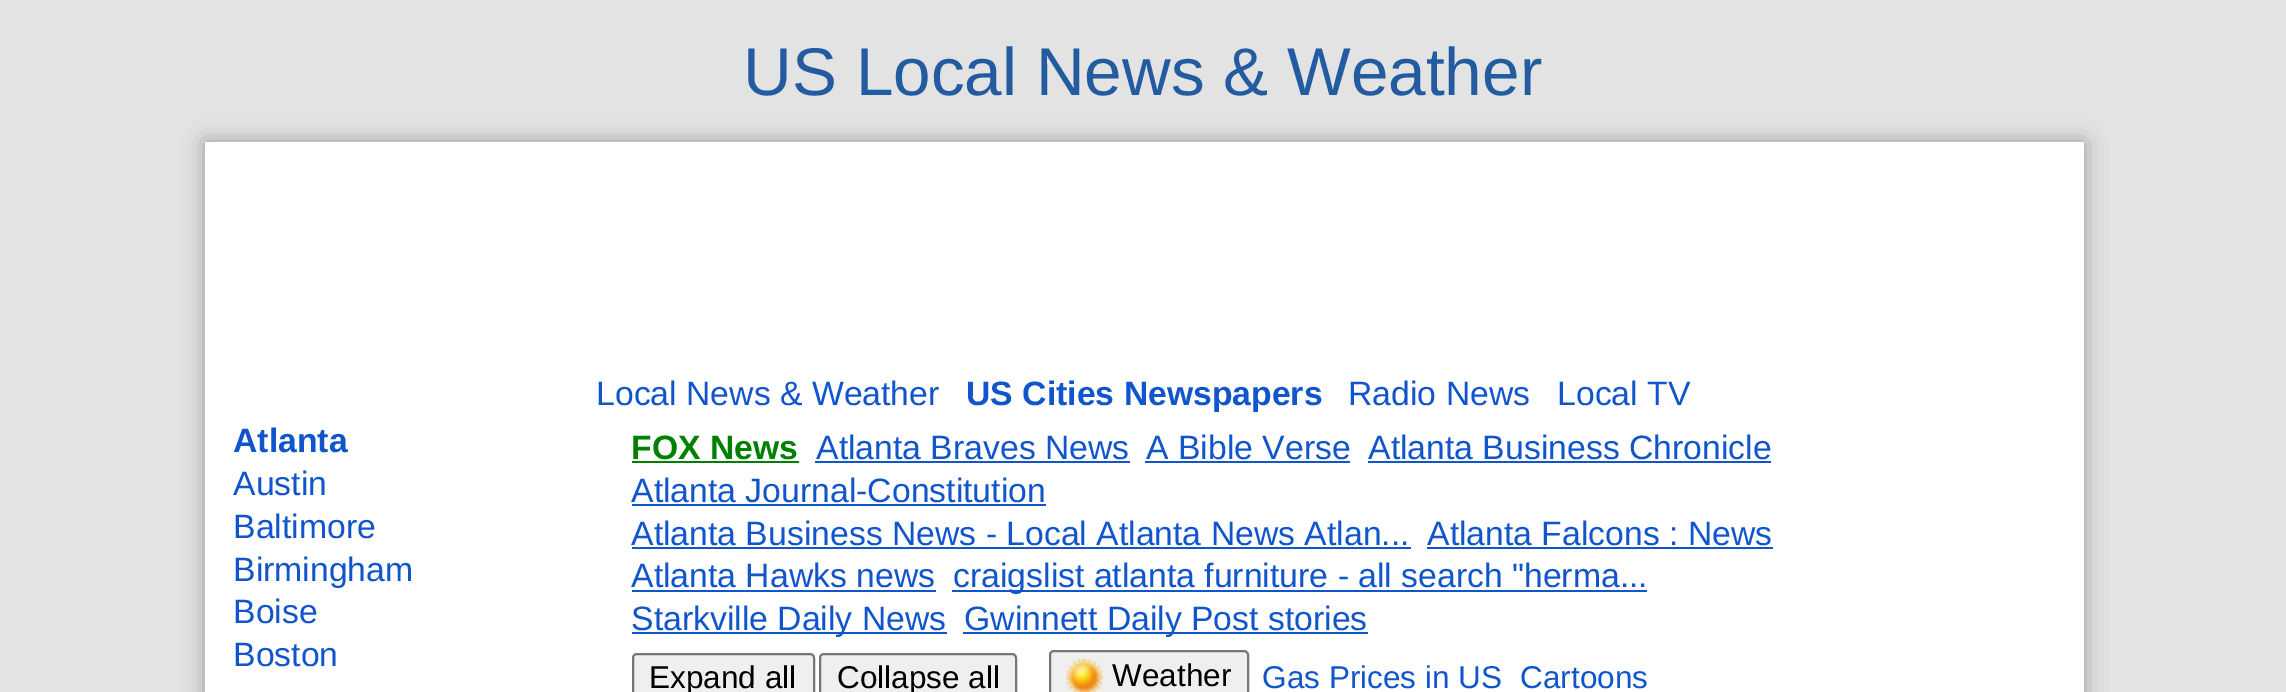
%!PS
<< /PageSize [2286 692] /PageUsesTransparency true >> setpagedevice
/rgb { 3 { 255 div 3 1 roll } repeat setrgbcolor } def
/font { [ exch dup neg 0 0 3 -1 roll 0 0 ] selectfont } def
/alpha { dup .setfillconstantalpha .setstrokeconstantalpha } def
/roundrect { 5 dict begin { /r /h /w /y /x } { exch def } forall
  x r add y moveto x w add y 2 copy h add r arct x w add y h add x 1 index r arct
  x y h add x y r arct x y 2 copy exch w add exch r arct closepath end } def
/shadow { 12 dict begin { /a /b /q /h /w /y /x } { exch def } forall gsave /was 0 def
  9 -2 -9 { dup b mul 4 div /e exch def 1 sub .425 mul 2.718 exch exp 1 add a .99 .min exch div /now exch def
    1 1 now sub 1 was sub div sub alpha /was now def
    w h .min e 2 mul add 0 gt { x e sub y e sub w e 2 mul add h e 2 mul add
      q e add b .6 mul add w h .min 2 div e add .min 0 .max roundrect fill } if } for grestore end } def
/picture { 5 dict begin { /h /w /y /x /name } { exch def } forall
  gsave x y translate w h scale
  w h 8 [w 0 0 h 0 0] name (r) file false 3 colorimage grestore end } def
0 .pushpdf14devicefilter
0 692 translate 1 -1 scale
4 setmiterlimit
227 227 227 rgb
0 0 2286 692 rectfill
153 153 153 rgb
205 142 1879 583 0 11 1 shadow
[
  [205 142 1879 550 255 255 255]
  [632 461 167 2 0 128 0]
  [815 461 315 2 17 85 204]
  [1145 461 205 2 17 85 204]
  [1368 461 403 2 17 85 204]
  [632 504 414 2 17 85 204]
  [632 547 779 2 17 85 204]
  [1427 547 346 2 17 85 204]
  [632 590 304 2 17 85 204]
  [952 590 695 2 17 85 204]
  [632 632 315 2 17 85 204]
  [963 632 405 2 17 85 204]
] { aload pop rgb rectfill } forall
239 239 239 rgb
633 654 181 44 4 roundrect gsave fill grestore
118 118 118 rgb
2 setlinewidth
stroke
239 239 239 rgb
820 654 196 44 4 roundrect gsave fill grestore
118 118 118 rgb
stroke
239 239 239 rgb
1050 651 198 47 4 roundrect gsave fill grestore
118 118 118 rgb
stroke
(img/1.rgb) 1066 659 37 33 picture
/LiberationSans-Regular 67.5 font
35 91 160 rgb
743 95 moveto (US Local News & Weather) show
/LiberationSans-Regular 33.75 font
17 85 204 rgb
596 405 moveto (Local News & Weather) show
/LiberationSans-Bold 33.75 font
966 405 moveto (US Cities Newspapers) show
/LiberationSans-Regular 33.75 font
1348 405 moveto (Radio News) show
1557 405 moveto (Local TV) show
/LiberationSans-Bold 33.75 font
233 452 moveto (Atlanta) show
/LiberationSans-Regular 33.75 font
[
  [(Austin) 233 495]
  [(Baltimore) 233 538]
  [(Birmingham) 233 581]
  [(Boise) 233 623]
  [(Boston) 233 666]
] { aload pop moveto show } forall
/LiberationSans-Bold 33.75 font
0 128 0 rgb
631 459 moveto (FOX News) show
/LiberationSans-Regular 33.75 font
17 85 204 rgb
[
  [(Atlanta Braves News) 816 459]
  [(A Bible Verse) 1146 459]
  [(Atlanta Business Chronicle) 1368 459]
  [(Atlanta Journal-Constitution) 631 502]
  [(Atlanta Business News - Local Atlanta News Atlan...) 631 545]
  [(Atlanta Falcons : News) 1427 545]
  [(Atlanta Hawks news) 631 587]
  [(craigslist atlanta furniture - all search "herma...) 953 587]
  [(Starkville Daily News) 631 630]
  [(Gwinnett Daily Post stories) 964 630]
] { aload pop moveto show } forall
/LiberationSans-Regular 31.5 font
0 0 0 rgb
[
  [(Expand all) 649 688]
  [(Collapse all) 837 688]
  [(Weather) 1112 686]
] { aload pop moveto show } forall
17 85 204 rgb
1262 688 moveto (Gas Prices in US) show
1520 688 moveto (Cartoons) show
.poppdf14devicefilter showpage
